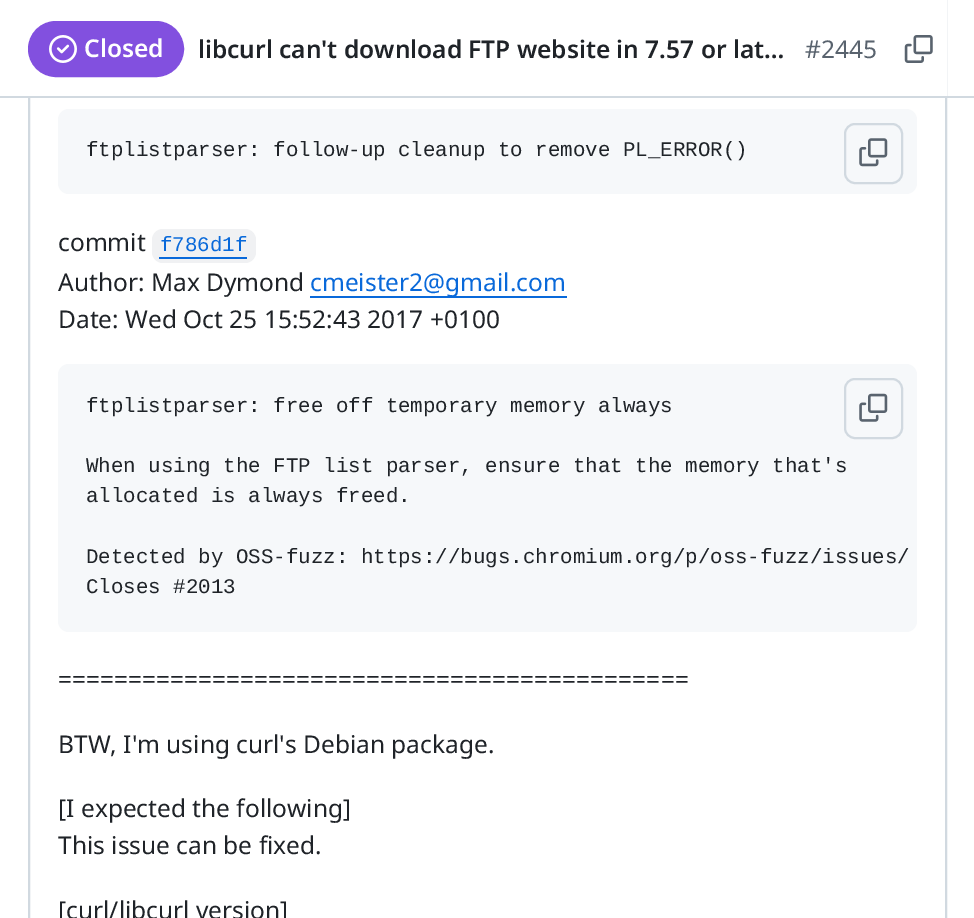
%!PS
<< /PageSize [974 918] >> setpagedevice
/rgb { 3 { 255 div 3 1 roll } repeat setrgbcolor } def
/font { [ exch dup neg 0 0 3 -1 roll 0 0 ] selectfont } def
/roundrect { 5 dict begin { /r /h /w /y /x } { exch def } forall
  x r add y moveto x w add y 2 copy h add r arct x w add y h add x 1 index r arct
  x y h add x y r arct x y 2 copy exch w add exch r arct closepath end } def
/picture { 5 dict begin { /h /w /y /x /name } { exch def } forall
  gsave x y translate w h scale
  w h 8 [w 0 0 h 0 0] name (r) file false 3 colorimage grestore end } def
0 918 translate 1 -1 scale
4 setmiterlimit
255 255 255 rgb
0 0 974 918 rectfill
209 217 224 rgb
2 setlinewidth
29 -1 917 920 rectstroke
255 255 255 rgb
28 0 919 96 rectfill
209 217 224 rgb
0 96 974 2 rectfill
130 80 223 rgb
29 22 154 54 27 roundrect gsave fill grestore
stroke
(img/1.rgb) 49 35 28 28 picture
(img/2.rgb) 904 35 29 28 picture
246 248 250 rgb
58 109 859 85 11 roundrect fill
209 217 224 rgb
845 124 57 59 10 roundrect stroke
(img/3.rgb) 859 138 29 29 picture
240 241 243 rgb
152 229 104 34 11 roundrect fill
9 105 218 rgb
159 257 88 2 rectfill
310 296 257 2 rectfill
246 248 250 rgb
58 364 859 268 11 roundrect fill
209 217 224 rgb
845 379 57 59 10 roundrect stroke
(img/4.rgb) 859 393 29 29 picture
/NotoSans-SemiBold 24.5 font
255 255 255 rgb
84 57 moveto (Closed) show
31 35 40 rgb
198 58 moveto (libcurl can't download FTP website in 7.57 or lat…) show
/NotoSans-Regular 24.5 font
89 99 110 rgb
805 58 moveto (#2445) show
/LiberationMono-Regular 20.8 font
31 35 40 rgb
86 156 moveto (ftplistparser: follow-up cleanup to remove PL_ERROR\(\)) show
/NotoSans-Regular 24.5 font
58 251 moveto (commit) show
/LiberationMono-Regular 20.8 font
9 105 218 rgb
160 251 moveto (f786d1f) show
/NotoSans-Regular 24.5 font
31 35 40 rgb
58 291 moveto (Author: Max Dymond) show
9 105 218 rgb
310 291 moveto (cmeister2@gmail.com) show
31 35 40 rgb
58 328 moveto (Date: Wed Oct 25 15:52:43 2017 +0100) show
/LiberationMono-Regular 20.8 font
[
  [(ftplistparser: free off temporary memory always) 86 412]
  [(When using the FTP list parser, ensure that the memory that's) 86 472]
  [(allocated is always freed.) 86 502]
  [(Detected by OSS-fuzz: https://bugs.chromium.org/p/oss-fuzz/issues/) 86 563]
  [(Closes #2013) 86 593]
] { aload pop moveto show } forall
/NotoSans-Regular 24.5 font
[
  [(=============================================) 58 688]
  [(BTW, I'm using curl's Debian package.) 58 753]
  [([I expected the following]) 58 817]
  [(This issue can be fixed.) 58 854]
  [([curl/libcurl version]) 58 919]
] { aload pop moveto show } forall
showpage
